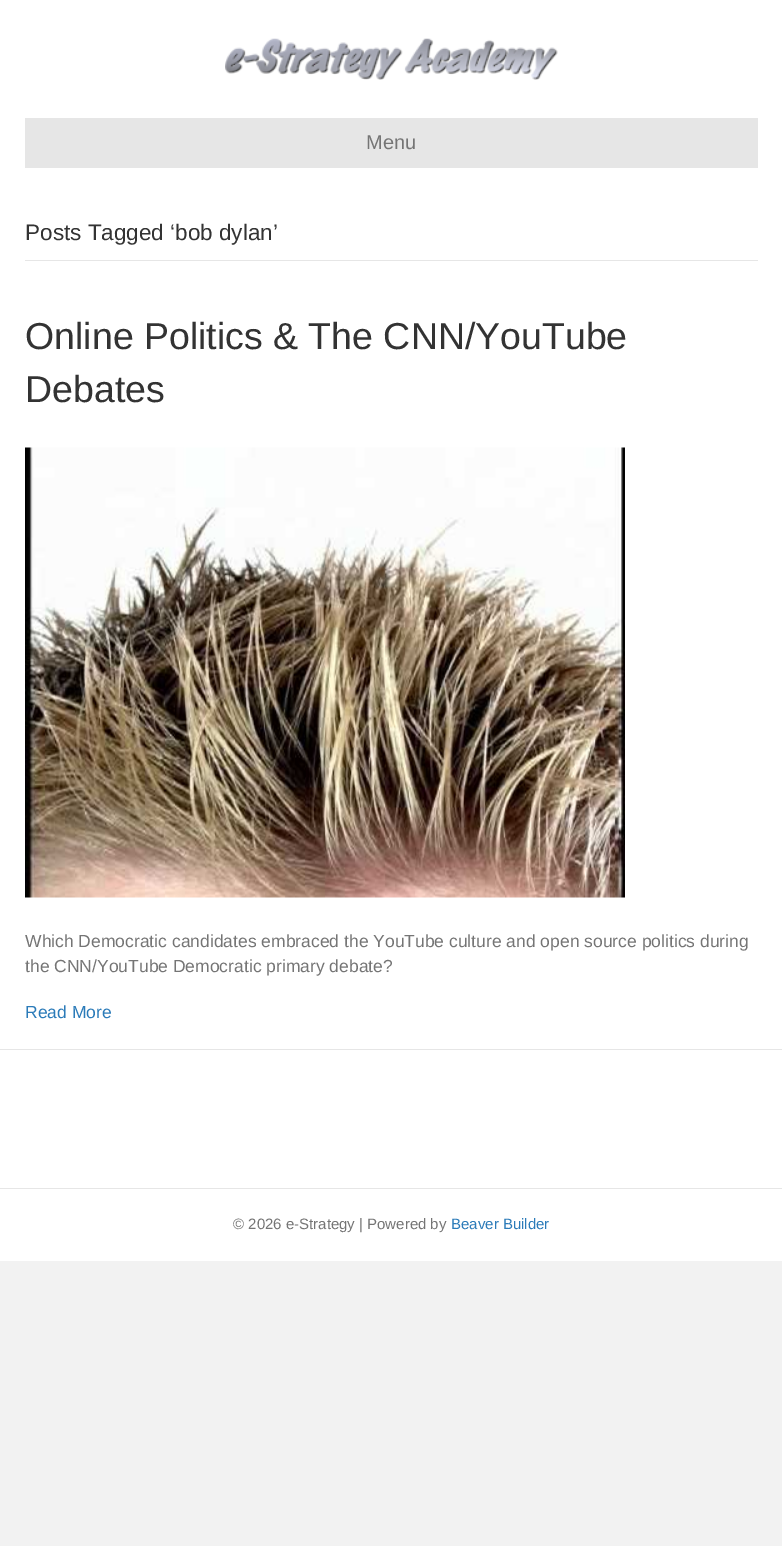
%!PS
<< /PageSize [782 1546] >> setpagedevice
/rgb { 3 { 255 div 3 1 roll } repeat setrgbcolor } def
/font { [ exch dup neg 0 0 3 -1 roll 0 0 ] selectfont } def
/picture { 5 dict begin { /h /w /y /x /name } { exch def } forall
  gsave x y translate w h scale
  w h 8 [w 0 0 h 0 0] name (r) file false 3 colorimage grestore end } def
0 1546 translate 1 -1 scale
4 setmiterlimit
242 242 242 rgb
0 0 782 1546 rectfill
255 255 255 rgb
0 0 782 1049 rectfill
(img/1.rgb) 225 38 333 42 picture
230 230 230 rgb
25 118 733 50 rectfill
25 260 733 1 rectfill
(img/2.rgb) 25 447 600 451 picture
[
  [0 1050 782 138 255 255 255]
  [0 1049 782 1 230 230 230]
  [0 1189 782 72 255 255 255]
  [0 1188 782 1 230 230 230]
] { aload pop rgb rectfill } forall
/LiberationSans-Regular 20 font
117 117 117 rgb
366 149 moveto (Menu) show
/LiberationSans-Regular 22.5 font
51 51 51 rgb
25 240 moveto (Posts Tagged ‘bob dylan’) show
/LiberationSans-Regular 37.5 font
25 349 moveto (Online Politics & The CNN/YouTube) show
25 402 moveto (Debates) show
/LiberationSans-Regular 17.5 font
117 117 117 rgb
25 947 moveto (Which Democratic candidates embraced the YouTube culture and open source politics during) show
25 972 moveto (the CNN/YouTube Democratic primary debate?) show
43 123 185 rgb
25 1018 moveto (Read More) show
/LiberationSans-Regular 15 font
117 117 117 rgb
233 1229 moveto (© 2026 e-Strategy | Powered by) show
43 123 185 rgb
451 1229 moveto (Beaver Builder) show
showpage
